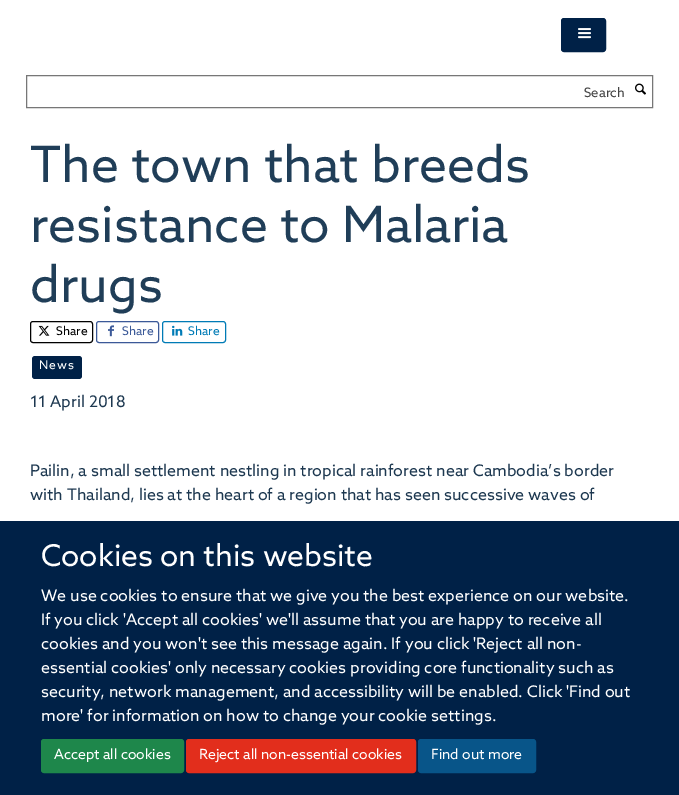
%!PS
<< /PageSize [679 795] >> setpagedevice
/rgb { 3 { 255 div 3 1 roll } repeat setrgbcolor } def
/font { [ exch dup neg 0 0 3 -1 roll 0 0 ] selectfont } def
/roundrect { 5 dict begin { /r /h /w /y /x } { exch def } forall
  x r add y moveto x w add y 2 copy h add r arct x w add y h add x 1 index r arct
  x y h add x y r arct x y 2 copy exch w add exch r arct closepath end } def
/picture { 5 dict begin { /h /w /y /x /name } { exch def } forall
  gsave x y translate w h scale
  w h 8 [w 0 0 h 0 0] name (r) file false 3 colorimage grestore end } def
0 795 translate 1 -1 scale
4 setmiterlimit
255 255 255 rgb
0 0 679 795 rectfill
0 33 71 rgb
561.5 18.5 44 33 2.5 roundrect gsave fill grestore
stroke
(img/1.rgb) 578 28 13 11 picture
119 119 119 rgb
26.5 75.5 626 32 rectstroke
(img/2.rgb) 635 83 11 12 picture
0 0 0 rgb
30.5 321.5 62 21 2.5 roundrect stroke
(img/3.rgb) 38 325 12 11 picture
59 89 152 rgb
96.5 321.5 62 21 2.5 roundrect stroke
(img/4.rgb) 108 325 6 12 picture
0 123 182 rgb
162.5 321.5 63 21 2.5 roundrect stroke
(img/5.rgb) 172 325 11 11 picture
0 33 71 rgb
32 356 50 23 3 roundrect fill
0 521 679 274 rectfill
30 135 75 rgb
41.5 739.5 142 33 2.5 roundrect gsave fill grestore
stroke
226 46 28 rgb
186.5 739.5 229 33 2.5 roundrect gsave fill grestore
stroke
8 85 137 rgb
418.5 739.5 117 33 2.5 roundrect gsave fill grestore
stroke
/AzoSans-Regular 13 font
68 68 68 rgb
584 97 moveto (Search) show
/AzoSans-Regular 50 font
32 62 88 rgb
[
  [(The town that breeds) 30 182]
  [(resistance to Malaria) 30 242]
  [(drugs) 30 302]
] { aload pop moveto show } forall
/AzoSans-Regular 12 font
0 0 0 rgb
56 335 moveto (Share) show
59 89 152 rgb
122 335 moveto (Share) show
0 123 182 rgb
188 335 moveto (Share) show
255 255 255 rgb
39 369 moveto 1 0 (News) ashow
/AzoSans-Regular 16 font
29 56 80 rgb
[
  [(11 April 2018) 30 407]
  [(Pailin, a small settlement nestling in tropical rainforest near Cambodia’s border) 30 476]
  [(with Thailand, lies at the heart of a region that has seen successive waves of) 30 500]
] { aload pop moveto show } forall
/AzoSans-Regular 30 font
255 255 255 rgb
41 566 moveto (Cookies on this website) show
/AzoSans-Regular 16 font
[
  [(We use cookies to ensure that we give you the best experience on our website.) 41 601]
  [(If you click 'Accept all cookies' we'll assume that you are happy to receive all) 41 625]
  [(cookies and you won't see this message again. If you click 'Reject all non-) 41 649]
  [(essential cookies' only necessary cookies providing core functionality such as) 41 673]
  [(security, network management, and accessibility will be enabled. Click 'Find out) 41 697]
  [(more' for information on how to change your cookie settings.) 41 721]
] { aload pop moveto show } forall
/AzoSans-Regular 14 font
[
  [(Accept all cookies) 54 759]
  [(Reject all non-essential cookies) 199 759]
  [(Find out more) 431 759]
] { aload pop moveto show } forall
showpage
